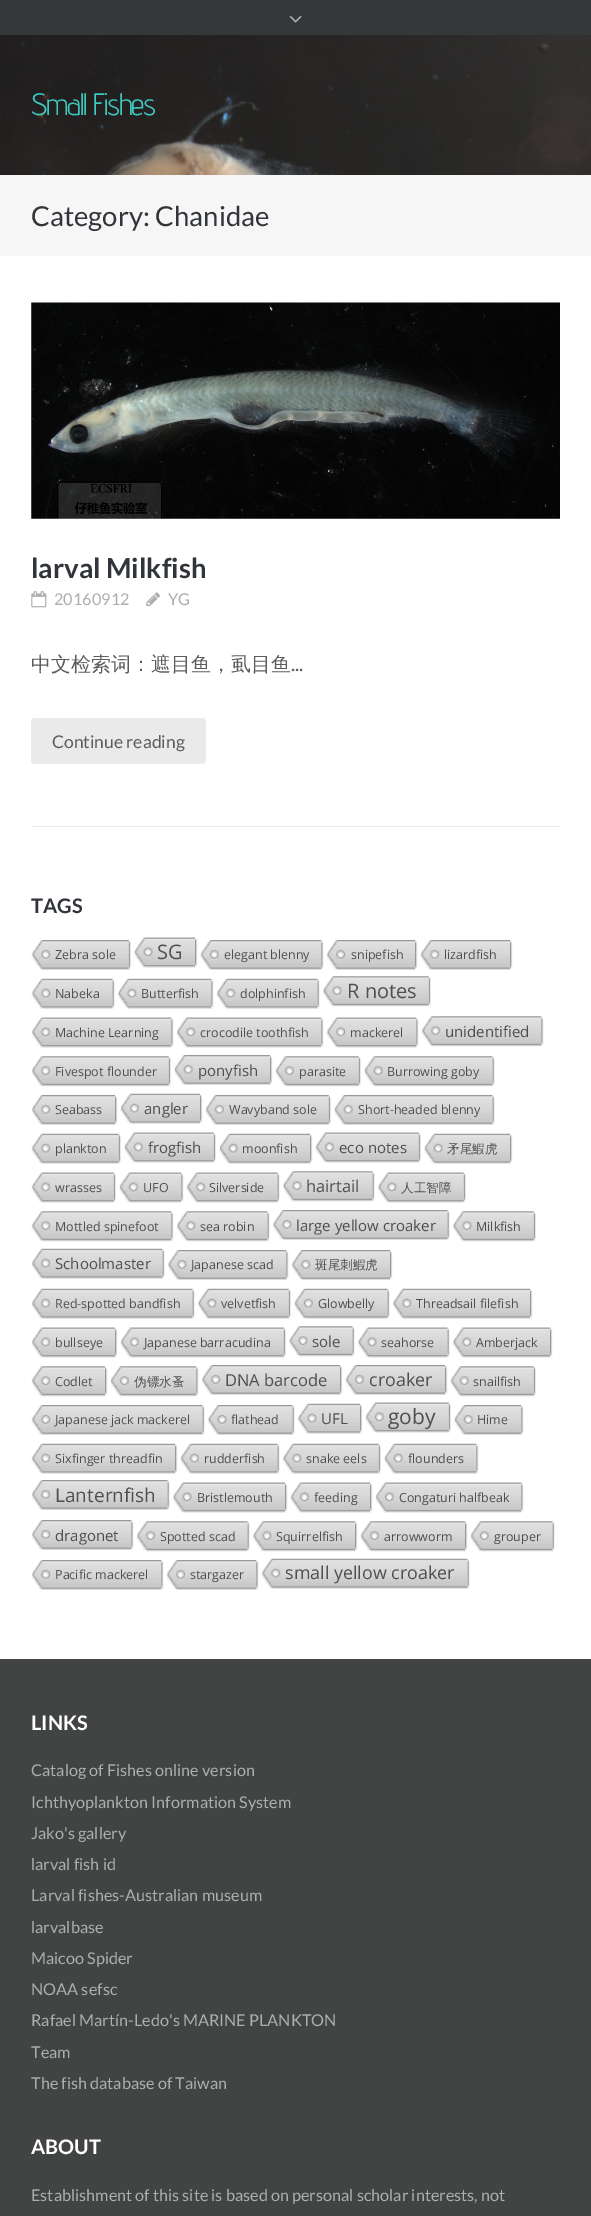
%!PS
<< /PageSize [591 2216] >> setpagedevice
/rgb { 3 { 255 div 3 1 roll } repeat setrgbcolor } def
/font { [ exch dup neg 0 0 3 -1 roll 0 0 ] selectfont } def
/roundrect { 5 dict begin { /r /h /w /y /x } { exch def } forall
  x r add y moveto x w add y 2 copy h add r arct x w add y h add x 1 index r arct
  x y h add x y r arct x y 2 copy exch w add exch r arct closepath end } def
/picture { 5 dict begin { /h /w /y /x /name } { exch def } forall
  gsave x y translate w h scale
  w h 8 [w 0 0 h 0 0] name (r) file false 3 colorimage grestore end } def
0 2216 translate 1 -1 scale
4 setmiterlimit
255 255 255 rgb
0 0 591 2216 rectfill
53 56 56 rgb
0 0 591 35 rectfill
(img/1.rgb) 289 15 13 8 picture
(img/2.rgb) 0 35 591 140 picture
246 246 247 rgb
0 175 591 81 rectfill
(img/3.rgb) 31 302 529 217 picture
(img/4.rgb) 31 591 16 17 picture
(img/5.rgb) 146 592 14 15 picture
234 234 234 rgb
31 718 175 46 4 roundrect fill
234 234 235 rgb
31 826 529 1 rectfill
(img/6.rgb) 31 940 98 30 picture
(img/7.rgb) 128 940 3 30 picture
(img/8.rgb) 134 937 61 31 picture
(img/9.rgb) 195 938 3 30 picture
(img/10.rgb) 200 940 122 30 picture
(img/11.rgb) 321 940 3 30 picture
(img/12.rgb) 326 940 89 30 picture
(img/13.rgb) 415 940 3 30 picture
(img/14.rgb) 420 940 90 30 picture
(img/13.rgb) 510 940 3 30 picture
(img/15.rgb) 31 978 82 31 picture
(img/16.rgb) 112 979 3 30 picture
(img/17.rgb) 117 978 95 31 picture
(img/18.rgb) 211 979 3 30 picture
(img/19.rgb) 216 978 102 31 picture
(img/16.rgb) 317 979 3 30 picture
(img/20.rgb) 323 976 106 31 picture
(img/21.rgb) 428 977 3 29 picture
(img/22.rgb) 31 1017 141 31 picture
(img/23.rgb) 171 1018 3 29 picture
(img/24.rgb) 176 1017 146 31 picture
(img/23.rgb) 321 1018 3 29 picture
(img/25.rgb) 326 1017 91 31 picture
(img/23.rgb) 416 1018 3 29 picture
(img/26.rgb) 421 1016 121 31 picture
(img/27.rgb) 541 1017 3 29 picture
(img/28.rgb) 31 1056 138 31 picture
(img/21.rgb) 168 1057 3 29 picture
(img/29.rgb) 174 1055 96 30 picture
(img/13.rgb) 270 1055 3 30 picture
(img/30.rgb) 275 1056 84 31 picture
(img/21.rgb) 358 1057 3 29 picture
(img/31.rgb) 364 1056 129 31 picture
(img/32.rgb) 492 1057 3 29 picture
(img/33.rgb) 31 1095 84 30 picture
(img/13.rgb) 115 1095 3 30 picture
(img/34.rgb) 120 1093 80 31 picture
(img/35.rgb) 200 1094 3 30 picture
(img/36.rgb) 205 1095 124 30 picture
(img/7.rgb) 328 1095 3 30 picture
(img/37.rgb) 334 1095 159 30 picture
(img/38.rgb) 492 1095 3 30 picture
(img/39.rgb) 31 1133 88 31 picture
(img/40.rgb) 118 1134 3 30 picture
(img/41.rgb) 124 1132 90 31 picture
(img/42.rgb) 213 1133 3 30 picture
(img/43.rgb) 219 1133 91 31 picture
(img/35.rgb) 310 1134 3 30 picture
(img/44.rgb) 315 1132 104 31 picture
(img/42.rgb) 418 1133 3 30 picture
(img/45.rgb) 424 1133 86 31 picture
(img/35.rgb) 510 1134 3 30 picture
(img/46.rgb) 31 1172 83 31 picture
(img/47.rgb) 113 1173 3 30 picture
(img/48.rgb) 119 1172 63 31 picture
(img/49.rgb) 181 1173 3 29 picture
(img/50.rgb) 186 1172 92 31 picture
(img/51.rgb) 277 1173 3 30 picture
(img/52.rgb) 283 1171 90 31 picture
(img/53.rgb) 372 1172 3 29 picture
(img/54.rgb) 377 1172 87 31 picture
(img/47.rgb) 463 1173 3 30 picture
(img/55.rgb) 31 1211 141 31 picture
(img/27.rgb) 171 1212 3 29 picture
(img/56.rgb) 176 1211 92 31 picture
(img/32.rgb) 267 1212 3 29 picture
(img/57.rgb) 272 1210 176 30 picture
(img/38.rgb) 447 1210 3 30 picture
(img/58.rgb) 452 1211 82 31 picture
(img/21.rgb) 533 1212 3 29 picture
(img/59.rgb) 31 1248 132 31 picture
(img/16.rgb) 162 1249 3 30 picture
(img/60.rgb) 168 1250 119 30 picture
(img/11.rgb) 286 1250 3 30 picture
(img/61.rgb) 291 1250 99 30 picture
(img/13.rgb) 390 1250 3 30 picture
(img/62.rgb) 31 1288 162 31 picture
(img/16.rgb) 192 1289 3 30 picture
(img/63.rgb) 197 1288 92 31 picture
(img/40.rgb) 288 1289 3 30 picture
(img/64.rgb) 294 1288 94 31 picture
(img/16.rgb) 387 1289 3 30 picture
(img/65.rgb) 392 1288 138 31 picture
(img/35.rgb) 530 1289 3 30 picture
(img/66.rgb) 31 1327 84 31 picture
(img/9.rgb) 115 1328 3 30 picture
(img/67.rgb) 120 1327 164 31 picture
(img/42.rgb) 283 1328 3 30 picture
(img/68.rgb) 289 1326 64 31 picture
(img/32.rgb) 352 1327 3 29 picture
(img/69.rgb) 358 1327 90 31 picture
(img/70.rgb) 447 1328 3 29 picture
(img/71.rgb) 452 1327 98 31 picture
(img/9.rgb) 550 1328 3 30 picture
(img/72.rgb) 31 1366 74 31 picture
(img/73.rgb) 105 1366 3 30 picture
(img/74.rgb) 110 1366 87 31 picture
(img/27.rgb) 196 1367 3 29 picture
(img/75.rgb) 201 1365 139 30 picture
(img/13.rgb) 340 1365 3 30 picture
(img/76.rgb) 345 1365 100 30 picture
(img/13.rgb) 445 1365 3 30 picture
(img/77.rgb) 450 1366 84 31 picture
(img/21.rgb) 533 1367 3 29 picture
(img/78.rgb) 31 1405 172 30 picture
(img/38.rgb) 202 1405 3 30 picture
(img/79.rgb) 208 1405 85 30 picture
(img/38.rgb) 292 1405 3 30 picture
(img/80.rgb) 297 1403 63 31 picture
(img/35.rgb) 360 1404 3 30 picture
(img/81.rgb) 365 1402 84 31 picture
(img/42.rgb) 448 1403 3 30 picture
(img/82.rgb) 454 1405 68 30 picture
(img/11.rgb) 521 1405 3 30 picture
(img/83.rgb) 31 1443 144 31 picture
(img/35.rgb) 175 1444 3 30 picture
(img/84.rgb) 180 1443 98 31 picture
(img/16.rgb) 277 1444 3 30 picture
(img/85.rgb) 282 1443 97 31 picture
(img/40.rgb) 378 1444 3 30 picture
(img/86.rgb) 384 1443 93 31 picture
(img/18.rgb) 476 1444 3 30 picture
(img/87.rgb) 31 1480 137 30 picture
(img/38.rgb) 167 1480 3 30 picture
(img/88.rgb) 173 1482 112 31 picture
(img/9.rgb) 285 1483 3 30 picture
(img/89.rgb) 290 1482 80 31 picture
(img/9.rgb) 370 1483 3 30 picture
(img/90.rgb) 375 1482 147 31 picture
(img/23.rgb) 521 1483 3 29 picture
(img/91.rgb) 31 1520 101 30 picture
(img/11.rgb) 131 1520 3 30 picture
(img/92.rgb) 136 1521 112 31 picture
(img/32.rgb) 247 1522 3 29 picture
(img/93.rgb) 252 1521 103 31 picture
(img/73.rgb) 355 1521 3 30 picture
(img/94.rgb) 360 1521 105 31 picture
(img/73.rgb) 465 1521 3 30 picture
(img/95.rgb) 470 1521 83 31 picture
(img/32.rgb) 552 1522 3 29 picture
(img/96.rgb) 31 1560 131 30 picture
(img/97.rgb) 161 1560 3 30 picture
(img/98.rgb) 166 1560 91 30 picture
(img/99.rgb) 256 1560 3 30 picture
(img/100.rgb) 261 1558 207 31 picture
(img/101.rgb) 467 1559 3 30 picture
66 68 68 rgb
0 1659 591 557 rectfill
/AdventPro-Regular 31 font
62 201 192 rgb
31 115 moveto -1.25 0 (Small Fishes) ashow
/Lato-Regular 27.5 font
49 53 57 rgb
31 226 moveto (Category: Chanidae) show
/Lato-Bold 27.5 font
31 578 moveto (larval Milkfish) show
/Lato-Regular 16.25 font
172 174 175 rgb
54 605 moveto (20160912) show
168 605 moveto (YG) show
/WenQuanYiZenHei-Medium 20 font
90 93 96 rgb
31 671 moveto (中文检索词：遮目鱼，虱目鱼) show
/Lato-Regular 20 font
291 671 moveto (...) show
/Lato-Regular 17.5 font
52 748 moveto (Continue reading) show
/Lato-Bold 20 font
49 53 57 rgb
31 913 moveto (TAGS) show
/OpenSans-Regular 12.5 font
79 79 79 rgb
55 959 moveto (Zebra sole) show
/OpenSans-Regular 20 font
157 959 moveto (SG) show
/OpenSans-Regular 12.5 font
[
  [(elegant blenny) 224 959]
  [(snipefish) 351 959]
  [(lizardfish) 444 959]
  [(Nabeka) 55 998]
  [(Butterfish) 141 998]
  [(dolphinfish) 240 998]
] { aload pop moveto show } forall
/OpenSans-Regular 20 font
347 998 moveto (R notes) show
/OpenSans-Regular 12.5 font
[
  [(Machine Learning) 55 1037]
  [(crocodile toothfish) 200 1037]
  [(mackerel) 350 1037]
] { aload pop moveto show } forall
/OpenSans-Regular 15 font
445 1037 moveto (unidentified) show
/OpenSans-Regular 12.5 font
55 1076 moveto (Fivespot flounder) show
/OpenSans-Regular 15 font
198 1076 moveto (ponyfish) show
/OpenSans-Regular 12.5 font
[
  [(parasite) 299 1076]
  [(Burrowing goby) 387 1076]
  [(Seabass) 55 1114]
] { aload pop moveto show } forall
/OpenSans-Regular 15 font
144 1114 moveto (angler) show
/OpenSans-Regular 12.5 font
[
  [(Wavyband sole) 229 1114]
  [(Short-headed blenny) 358 1114]
  [(plankton) 55 1153]
] { aload pop moveto show } forall
/OpenSans-Regular 15 font
148 1153 moveto (frogfish) show
/OpenSans-Regular 12.5 font
242 1153 moveto (moonfish) show
/OpenSans-Regular 15 font
339 1153 moveto (eco notes) show
/WenQuanYiZenHei-Medium 12.5 font
447 1153 moveto (矛尾鰕虎) show
/OpenSans-Regular 12.5 font
[
  [(wrasses) 55 1192]
  [(UFO) 143 1192]
  [(Silverside) 209 1192]
] { aload pop moveto show } forall
/OpenSans-Regular 16.5 font
306 1192 moveto (hairtail) show
/WenQuanYiZenHei-Medium 12.5 font
401 1192 moveto (人工智障) show
/OpenSans-Regular 12.5 font
55 1231 moveto (Mottled spinefoot) show
200 1231 moveto (sea robin) show
/OpenSans-Regular 15 font
296 1231 moveto (large yellow croaker) show
/OpenSans-Regular 12.5 font
476 1231 moveto (Milkfish) show
/OpenSans-Regular 15 font
55 1269 moveto (Schoolmaster) show
/OpenSans-Regular 12.5 font
191 1269 moveto (Japanese scad) show
/WenQuanYiZenHei-Medium 12.5 font
315 1269 moveto (斑尾刺鰕虎) show
/OpenSans-Regular 12.5 font
[
  [(Red-spotted bandfish) 55 1308]
  [(velvetfish) 221 1308]
  [(Glowbelly) 318 1308]
  [(Threadsail filefish) 416 1308]
  [(bullseye) 55 1347]
  [(Japanese barracudina) 144 1347]
] { aload pop moveto show } forall
/OpenSans-Regular 15 font
312 1347 moveto (sole) show
/OpenSans-Regular 12.5 font
[
  [(seahorse) 381 1347]
  [(Amberjack) 476 1347]
  [(Codlet) 55 1386]
] { aload pop moveto show } forall
/WenQuanYiZenHei-Medium 12.5 font
134 1386 moveto (伪镖水蚤) show
/OpenSans-Regular 16.5 font
225 1386 moveto (DNA barcode) show
/OpenSans-Regular 17.9 font
369 1386 moveto (croaker) show
/OpenSans-Regular 12.5 font
[
  [(snailfish) 473 1386]
  [(Japanese jack mackerel) 55 1424]
  [(flathead) 231 1424]
] { aload pop moveto show } forall
/OpenSans-Regular 15 font
321 1424 moveto (UFL) show
/OpenSans-Regular 21 font
388 1424 moveto (goby) show
/OpenSans-Regular 12.5 font
[
  [(Hime) 477 1424]
  [(Sixfinger threadfin) 55 1463]
  [(rudderfish) 204 1463]
  [(snake eels) 306 1463]
  [(flounders) 408 1463]
] { aload pop moveto show } forall
/OpenSans-Regular 19 font
55 1502 moveto (Lanternfish) show
/OpenSans-Regular 12.5 font
[
  [(Bristlemouth) 197 1502]
  [(feeding) 314 1502]
  [(Congaturi halfbeak) 399 1502]
] { aload pop moveto show } forall
/OpenSans-Regular 15 font
55 1541 moveto (dragonet) show
/OpenSans-Regular 12.5 font
[
  [(Spotted scad) 160 1541]
  [(Squirrelfish) 276 1541]
  [(arrowworm) 384 1541]
  [(grouper) 494 1541]
  [(Pacific mackerel) 55 1579]
  [(stargazer) 190 1579]
] { aload pop moveto show } forall
/OpenSans-Regular 17.9 font
285 1579 moveto (small yellow croaker) show
/Lato-Bold 20 font
255 255 255 rgb
31 1730 moveto (LINKS) show
/Lato-Regular 16.25 font
172 174 175 rgb
[
  [(Catalog of Fishes online version) 31 1776]
  [(Ichthyoplankton Information System) 31 1808]
  [(Jako's gallery) 31 1839]
  [(larval fish id) 31 1870]
  [(Larval fishes-Australian museum) 31 1901]
  [(larvalbase) 31 1933]
  [(Maicoo Spider) 31 1964]
  [(NOAA sefsc) 31 1995]
  [(Rafael Martín-Ledo's MARINE PLANKTON) 31 2026]
  [(Team) 31 2058]
  [(The fish database of Taiwan) 31 2089]
] { aload pop moveto show } forall
/Lato-Bold 20 font
255 255 255 rgb
31 2154 moveto (ABOUT) show
/Lato-Regular 16.25 font
172 174 175 rgb
31 2201 moveto (Establishment of this site is based on personal scholar interests, not) show
showpage
